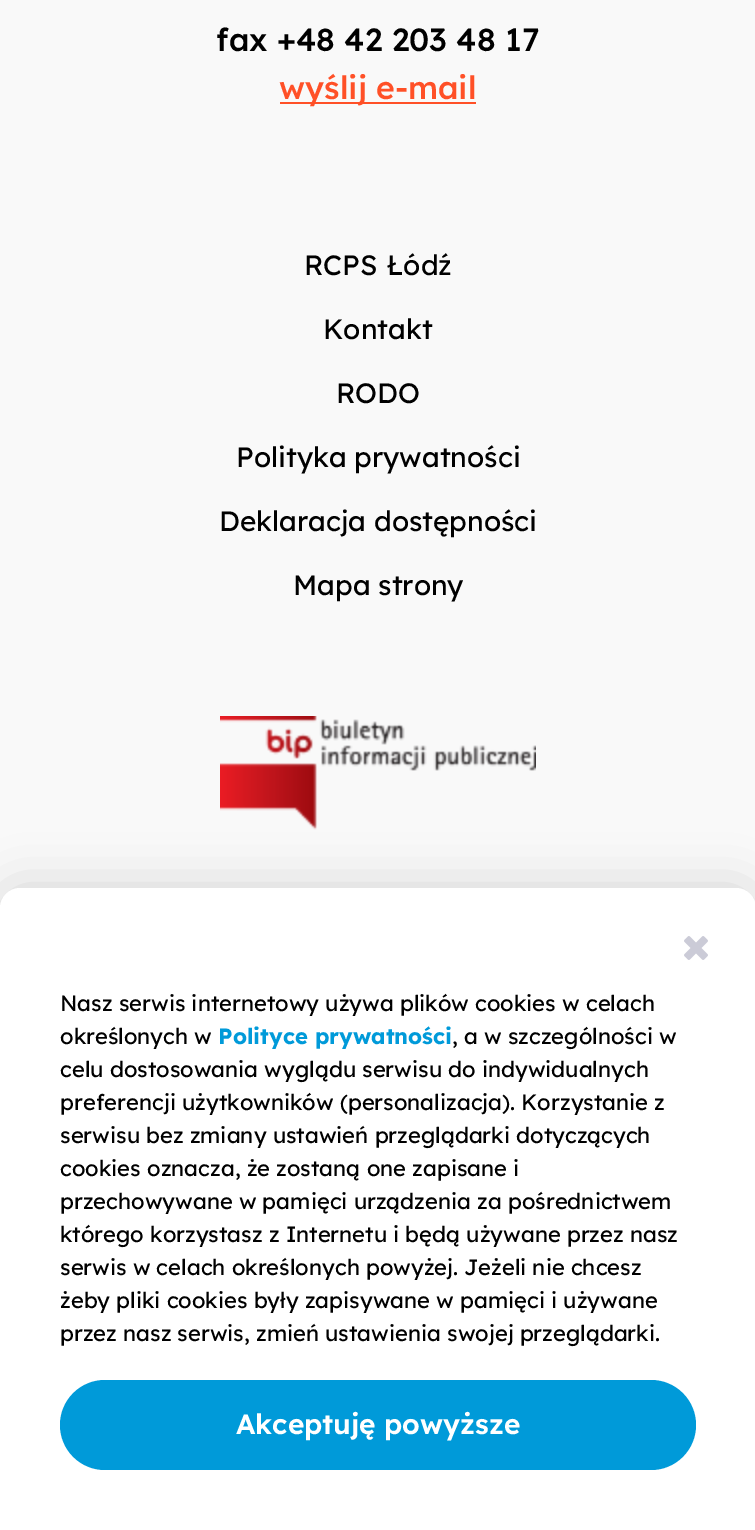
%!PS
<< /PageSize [755 1530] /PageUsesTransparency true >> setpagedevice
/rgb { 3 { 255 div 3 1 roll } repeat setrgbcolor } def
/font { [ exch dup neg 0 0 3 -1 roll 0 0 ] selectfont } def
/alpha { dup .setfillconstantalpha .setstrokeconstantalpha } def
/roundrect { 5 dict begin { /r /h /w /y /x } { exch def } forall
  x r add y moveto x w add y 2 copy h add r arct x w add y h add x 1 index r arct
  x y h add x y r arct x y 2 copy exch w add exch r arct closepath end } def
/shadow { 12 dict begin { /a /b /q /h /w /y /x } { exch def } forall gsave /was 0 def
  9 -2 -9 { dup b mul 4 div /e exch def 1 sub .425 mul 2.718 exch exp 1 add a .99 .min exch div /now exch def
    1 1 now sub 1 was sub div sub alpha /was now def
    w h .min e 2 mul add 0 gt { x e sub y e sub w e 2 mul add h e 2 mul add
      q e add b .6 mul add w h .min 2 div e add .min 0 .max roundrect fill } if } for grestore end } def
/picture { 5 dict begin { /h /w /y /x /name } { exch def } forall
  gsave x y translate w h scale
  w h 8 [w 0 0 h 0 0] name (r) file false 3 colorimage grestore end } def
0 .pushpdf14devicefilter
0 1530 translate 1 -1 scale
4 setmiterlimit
249 249 249 rgb
0 0 755 1530 rectfill
255 80 39 rgb
280 102 196 2 rectfill
(img/1.rgb) 220 716 316 114 picture
0 0 0 rgb
0 888 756 642 20 25 0.15 shadow
255 255 255 rgb
20 888 moveto 736 888 lineto 747 888 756 897 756 908 curveto 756 1530 lineto 0 1530 lineto 0 908 lineto 0 897 9 888 20 888 curveto closepath fill
(img/2.rgb) 684 936 24 24 picture
0 154 217 rgb
60 1380 636 90 45 roundrect fill
/LexendDeca-Medium 32 font
0 0 0 rgb
216 51 moveto (fax +48 42 203 48 17) show
255 80 39 rgb
279 99 moveto (wyślij e-mail) show
/LexendDeca-Regular 28 font
0 0 0 rgb
[
  [(RCPS Łódź) 304 275]
  [(Kontakt) 323 339]
  [(RODO) 336 403]
  [(Polityka prywatności) 236 467]
  [(Deklaracja dostępności) 219 531]
  [(Mapa strony) 293 595]
] { aload pop moveto show } forall
/LexendDeca-Regular 22 font
60 1011 moveto (Nasz serwis internetowy używa plików cookies w celach) show
60 1044 moveto (określonych w) show
/LexendDeca-Bold 22 font
0 154 217 rgb
218 1044 moveto (Polityce prywatności) show
/LexendDeca-Regular 22 font
0 0 0 rgb
[
  [(, a w szczególności w) 452 1044]
  [(celu dostosowania wyglądu serwisu do indywidualnych) 60 1077]
  [(preferencji użytkowników \(personalizacja\). Korzystanie z) 60 1110]
  [(serwisu bez zmiany ustawień przeglądarki dotyczących) 60 1143]
  [(cookies oznacza, że zostaną one zapisane i) 60 1176]
  [(przechowywane w pamięci urządzenia za pośrednictwem) 60 1209]
  [(którego korzystasz z Internetu i będą używane przez nasz) 60 1242]
  [(serwis w celach określonych powyżej. Jeżeli nie chcesz) 60 1275]
  [(żeby pliki cookies były zapisywane w pamięci i używane) 60 1308]
  [(przez nasz serwis, zmień ustawienia swojej przeglądarki.) 60 1341]
] { aload pop moveto show } forall
/LexendDeca-SemiBold 28 font
255 255 255 rgb
236 1434 moveto (Akceptuję powyższe) show
.poppdf14devicefilter showpage
